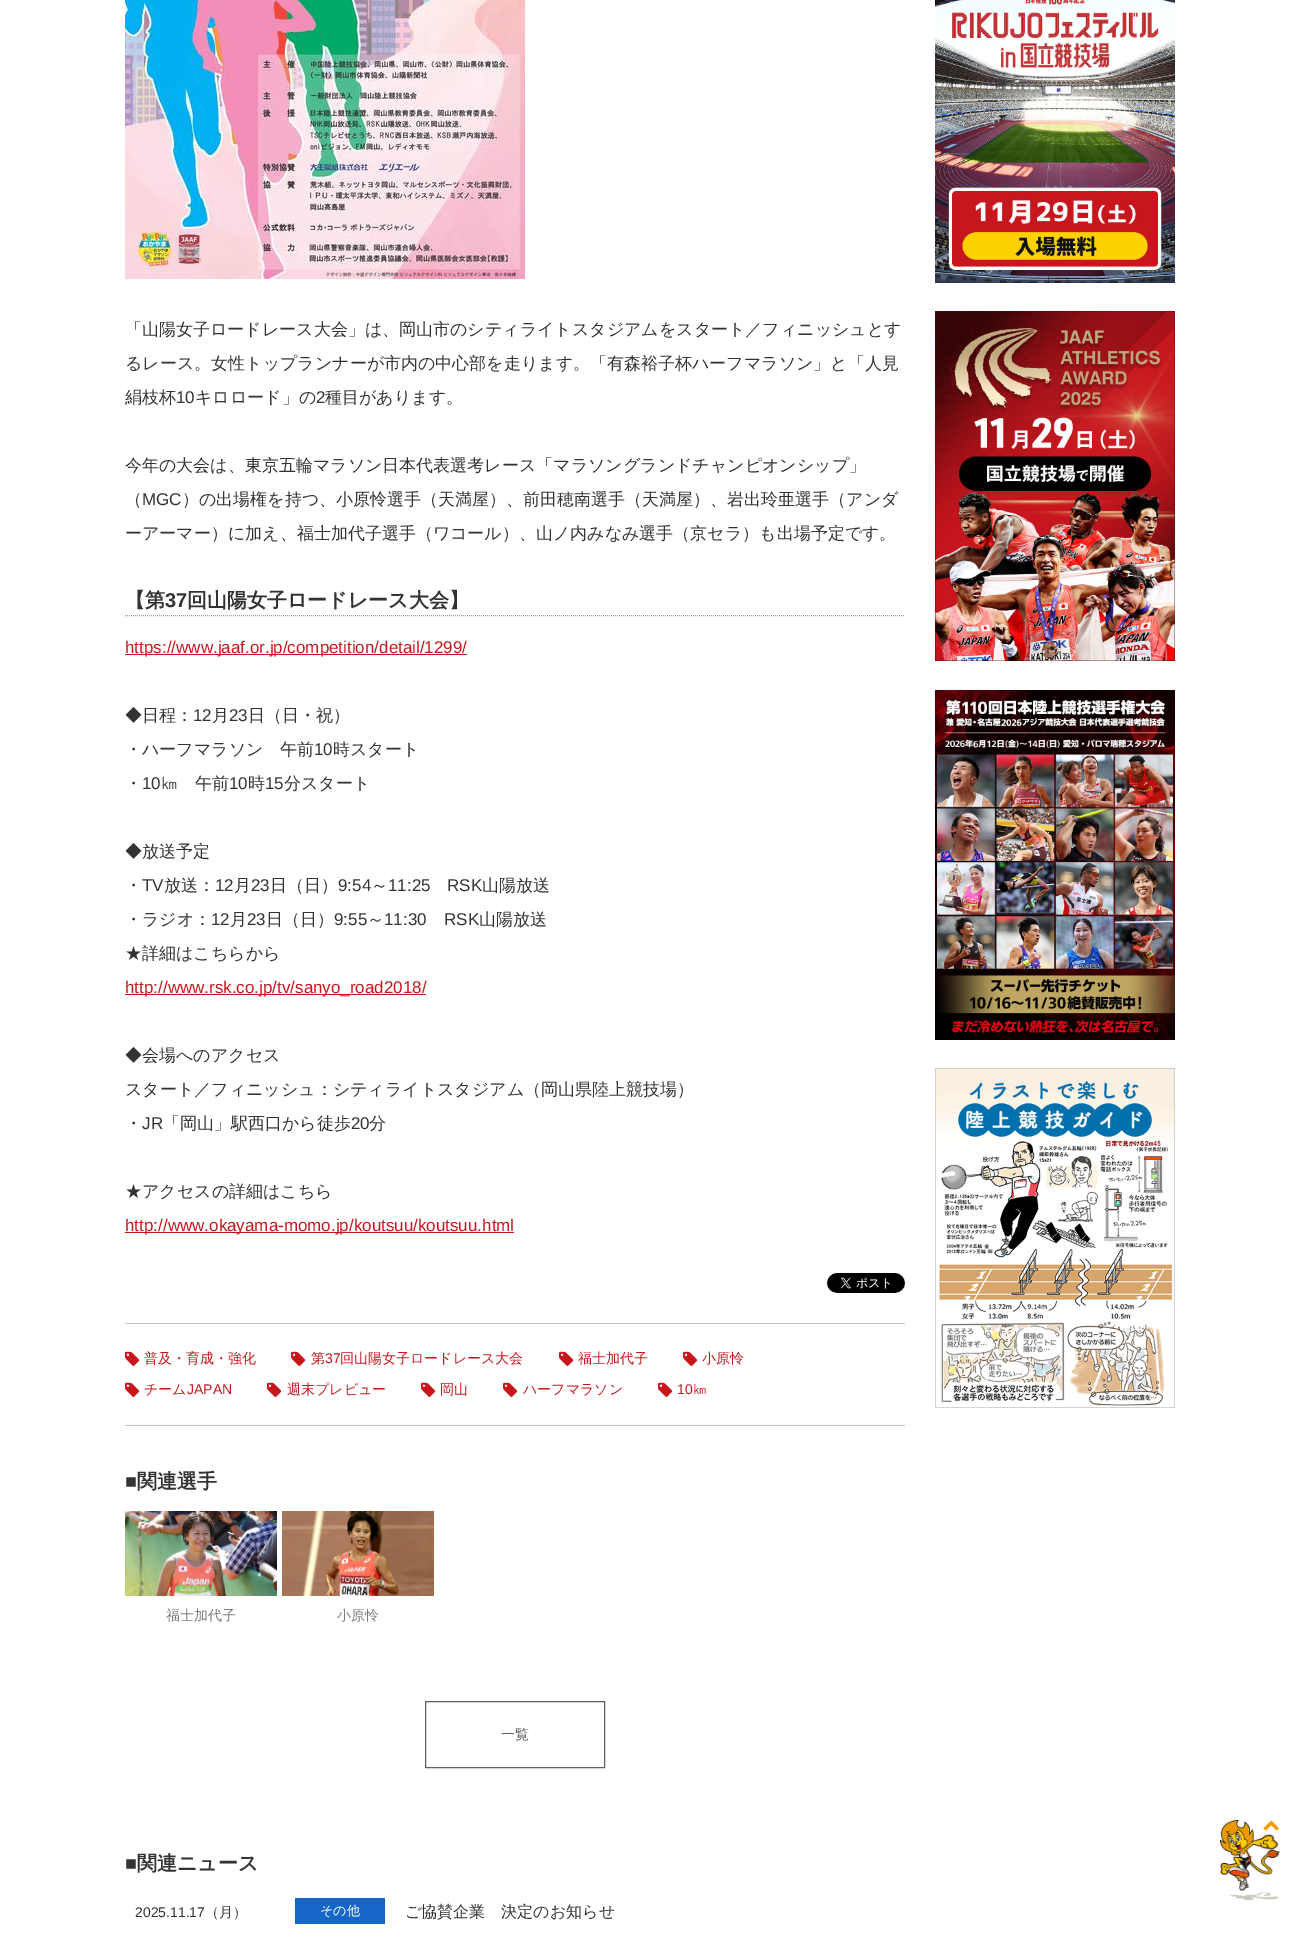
%!PS
<< /PageSize [1300 1944] >> setpagedevice
/rgb { 3 { 255 div 3 1 roll } repeat setrgbcolor } def
/font { [ exch dup neg 0 0 3 -1 roll 0 0 ] selectfont } def
/picture { 5 dict begin { /h /w /y /x /name } { exch def } forall
  gsave x y translate w h scale
  w h 8 [w 0 0 h 0 0] name (r) file false 3 colorimage grestore end } def
0 1944 translate 1 -1 scale
4 setmiterlimit
255 255 255 rgb
0 0 1300 1944 rectfill
(img/1.rgb) 125 0 400 279 picture
153 153 153 rgb
[1 1] 0 setdash
125 615.5 moveto 905 615.5 lineto stroke
[
  [125 654 342 1 200 22 29]
  [125 994 301 1 200 22 29]
  [125 1232 389 1 200 22 29]
] { aload pop rgb rectfill } forall
(img/2.rgb) 827 1273 78 20 picture
194 194 194 rgb
125 1323 780 1 rectfill
125 1425 780 1 rectfill
(img/3.rgb) 125 1351 15 15 picture
(img/3.rgb) 291 1351 15 15 picture
(img/3.rgb) 559 1351 15 15 picture
(img/3.rgb) 683 1351 15 15 picture
(img/3.rgb) 125 1382 15 15 picture
(img/3.rgb) 267 1382 15 15 picture
(img/3.rgb) 421 1382 15 15 picture
(img/3.rgb) 503 1382 15 15 picture
(img/3.rgb) 658 1382 15 15 picture
(img/4.rgb) 125 1511 152 85 picture
(img/5.rgb) 282 1511 152 85 picture
96 96 96 rgb
[] 0 setdash
425.5 1701.5 179 66 rectstroke
22 102 200 rgb
295 1898 90 26 rectfill
(img/6.rgb) 935 0 240 283 picture
(img/7.rgb) 935 311 240 350 picture
(img/8.rgb) 935 690 240 350 picture
(img/9.rgb) 935 1068 240 340 picture
(img/10.rgb) 1220 1820 60 80 picture
/WenQuanYiZenHei-Medium 17 font
51 51 51 rgb
[
  [(「山陽女子ロードレース大会」は、岡山市のシティライトスタジアムをスタート／フィニッシュとす) 125 335]
  [(るレース。女性トップランナーが市内の中心部を走ります。「有森裕子杯ハーフマラソン」と「人見) 125 369]
  [(絹枝杯) 125 403]
] { aload pop moveto show } forall
/LiberationSans-Regular 17 font
176 403 moveto (10) show
/WenQuanYiZenHei-Medium 17 font
195 403 moveto (キロロード」の) show
/LiberationSans-Regular 17 font
316 403 moveto (2) show
/WenQuanYiZenHei-Medium 17 font
[
  [(種目があります。) 325 403]
  [(今年の大会は、東京五輪マラソン日本代表選考レース「マラソングランドチャンピオンシップ」) 125 471]
  [(（) 125 505]
] { aload pop moveto show } forall
/LiberationSans-Regular 17 font
142 505 moveto (MGC) show
/WenQuanYiZenHei-Medium 17 font
182 505 moveto (）の出場権を持つ、小原怜選手（天満屋）、前田穂南選手（天満屋）、岩出玲亜選手（アンダ) show
125 539 moveto (ーアーマー）に加え、福士加代子選手（ワコール）、山ノ内みなみ選手（京セラ）も出場予定です。) show
/WenQuanYiZenHei-Bold 20 font
125 607 moveto (【第) show
/LiberationSans-Bold 20 font
165 607 moveto (37) show
/WenQuanYiZenHei-Bold 20 font
187 607 moveto (回山陽女子ロードレース大会】) show
/LiberationSans-Regular 17 font
200 22 29 rgb
125 653 moveto (https://www.jaaf.or.jp/competition/detail/1299/) show
/WenQuanYiZenHei-Medium 17 font
51 51 51 rgb
125 721 moveto (◆日程：) show
/LiberationSans-Regular 17 font
193 721 moveto (12) show
/WenQuanYiZenHei-Medium 17 font
212 721 moveto (月) show
/LiberationSans-Regular 17 font
229 721 moveto (23) show
/WenQuanYiZenHei-Medium 17 font
248 721 moveto (日（日・祝）) show
125 755 moveto (・ハーフマラソン　午前) show
/LiberationSans-Regular 17 font
314 755 moveto (10) show
/WenQuanYiZenHei-Medium 17 font
333 755 moveto (時スタート) show
125 789 moveto (・) show
/LiberationSans-Regular 17 font
142 789 moveto (10) show
/WenQuanYiZenHei-Medium 17 font
161 789 moveto (㎞　午前) show
/LiberationSans-Regular 17 font
229 789 moveto (10) show
/WenQuanYiZenHei-Medium 17 font
248 789 moveto (時) show
/LiberationSans-Regular 17 font
265 789 moveto (15) show
/WenQuanYiZenHei-Medium 17 font
[
  [(分スタート) 284 789]
  [(◆放送予定) 125 857]
  [(・) 125 891]
] { aload pop moveto show } forall
/LiberationSans-Regular 17 font
142 891 moveto (TV) show
/WenQuanYiZenHei-Medium 17 font
164 891 moveto (放送：) show
/LiberationSans-Regular 17 font
215 891 moveto (12) show
/WenQuanYiZenHei-Medium 17 font
234 891 moveto (月) show
/LiberationSans-Regular 17 font
251 891 moveto (23) show
/WenQuanYiZenHei-Medium 17 font
270 891 moveto (日（日）) show
/LiberationSans-Regular 17 font
338 891 moveto (9:54) show
/WenQuanYiZenHei-Medium 17 font
371 891 moveto (～) show
/LiberationSans-Regular 17 font
388 891 moveto (11:25) show
447 891 moveto (RSK) show
/WenQuanYiZenHei-Medium 17 font
482 891 moveto (山陽放送) show
125 925 moveto (・ラジオ：) show
/LiberationSans-Regular 17 font
211 925 moveto (12) show
/WenQuanYiZenHei-Medium 17 font
230 925 moveto (月) show
/LiberationSans-Regular 17 font
247 925 moveto (23) show
/WenQuanYiZenHei-Medium 17 font
266 925 moveto (日（日）) show
/LiberationSans-Regular 17 font
334 925 moveto (9:55) show
/WenQuanYiZenHei-Medium 17 font
367 925 moveto (～) show
/LiberationSans-Regular 17 font
384 925 moveto (11:30) show
444 925 moveto (RSK) show
/WenQuanYiZenHei-Medium 17 font
479 925 moveto (山陽放送) show
125 959 moveto (★詳細はこちらから) show
/LiberationSans-Regular 17 font
200 22 29 rgb
125 993 moveto (http://www.rsk.co.jp/tv/sanyo_road2018/) show
/WenQuanYiZenHei-Medium 17 font
51 51 51 rgb
[
  [(◆会場へのアクセス) 125 1061]
  [(スタート／フィニッシュ：シティライトスタジアム（岡山県陸上競技場）) 125 1095]
  [(・) 125 1129]
] { aload pop moveto show } forall
/LiberationSans-Regular 17 font
142 1129 moveto (JR) show
/WenQuanYiZenHei-Medium 17 font
163 1129 moveto (「岡山」駅西口から徒歩) show
/LiberationSans-Regular 17 font
351 1129 moveto (20) show
/WenQuanYiZenHei-Medium 17 font
369 1129 moveto (分) show
125 1197 moveto (★アクセスの詳細はこちら) show
/LiberationSans-Regular 17 font
200 22 29 rgb
125 1231 moveto (http://www.okayama-momo.jp/koutsuu/koutsuu.html) show
/WenQuanYiZenHei-Medium 14 font
144 1363 moveto (普及・育成・強化) show
311 1363 moveto (第) show
/LiberationSans-Regular 14 font
325 1363 moveto (37) show
/WenQuanYiZenHei-Medium 14 font
[
  [(回山陽女子ロードレース大会) 340 1363]
  [(福士加代子) 578 1363]
  [(小原怜) 702 1363]
  [(チーム) 144 1394]
] { aload pop moveto show } forall
/LiberationSans-Regular 14 font
187 1394 moveto (JAPAN) show
/WenQuanYiZenHei-Medium 14 font
[
  [(週末プレビュー) 287 1394]
  [(岡山) 440 1394]
  [(ハーフマラソン) 523 1394]
] { aload pop moveto show } forall
/LiberationSans-Regular 14 font
677 1394 moveto (10) show
/WenQuanYiZenHei-Medium 14 font
693 1394 moveto (㎞) show
/LiberationSans-Bold 20 font
51 51 51 rgb
125 1488 moveto (■) show
/WenQuanYiZenHei-Bold 20 font
137 1488 moveto (関連選手) show
/WenQuanYiZenHei-Medium 14 font
123 123 123 rgb
166 1620 moveto (福士加代子) show
337 1620 moveto (小原怜) show
96 96 96 rgb
501 1739 moveto (一覧) show
/LiberationSans-Bold 20 font
51 51 51 rgb
125 1870 moveto (■) show
/WenQuanYiZenHei-Bold 20 font
137 1870 moveto (関連ニュース) show
/LiberationSans-Regular 14 font
135 1917 moveto (2025.11.17) show
/WenQuanYiZenHei-Medium 14 font
205 1917 moveto (（月）) show
/WenQuanYiZenHei-Medium 16 font
405 1917 moveto (ご協賛企業　決定のお知らせ) show
/WenQuanYiZenHei-Medium 13 font
255 255 255 rgb
320 1915 moveto (その他) show
showpage
